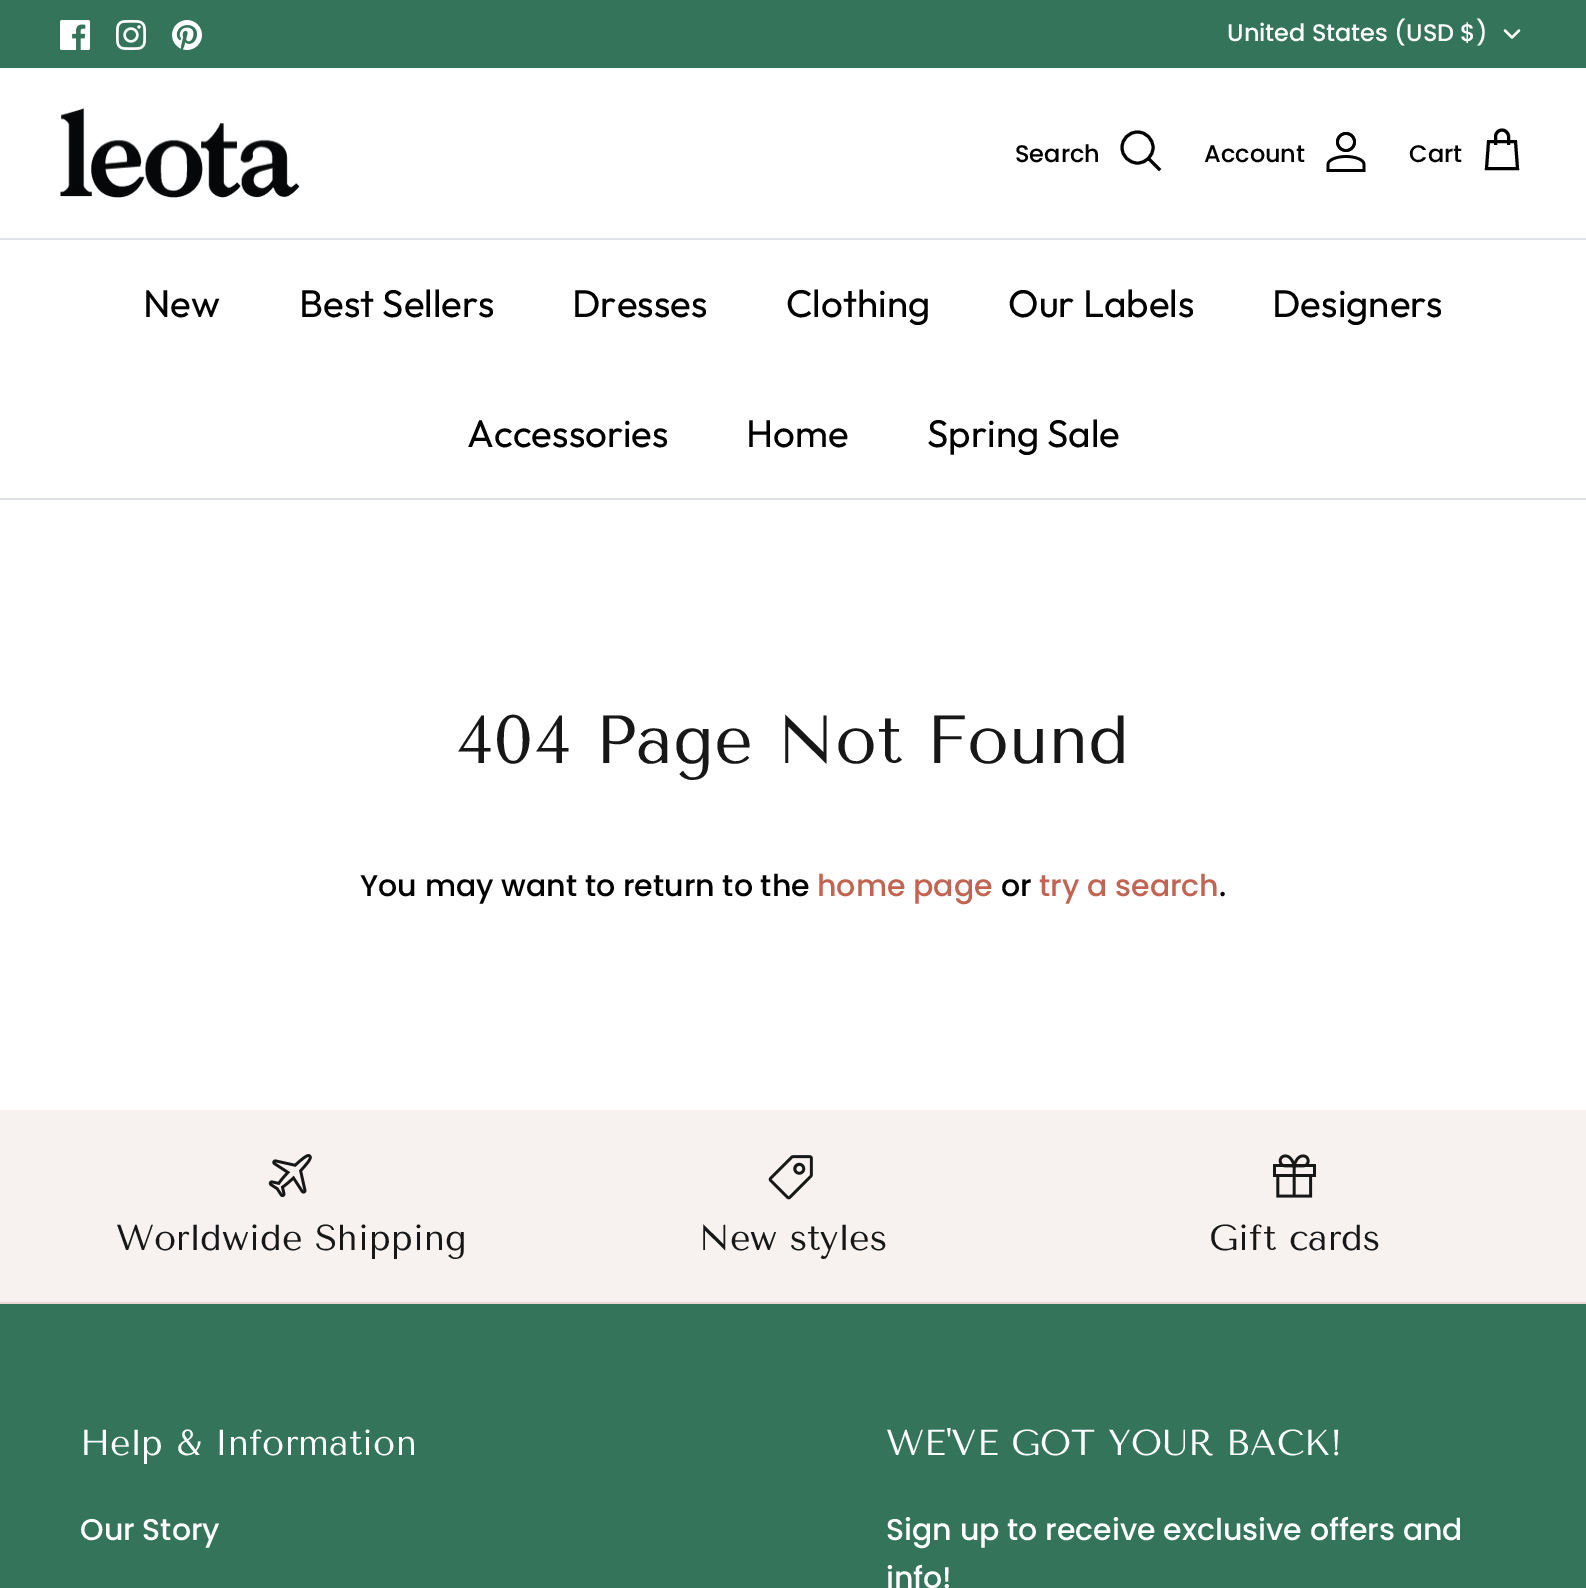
%!PS
<< /PageSize [1586 1588] >> setpagedevice
/rgb { 3 { 255 div 3 1 roll } repeat setrgbcolor } def
/font { [ exch dup neg 0 0 3 -1 roll 0 0 ] selectfont } def
/circle { newpath 0 360 arc closepath } def
/picture { 5 dict begin { /h /w /y /x /name } { exch def } forall
  gsave x y translate w h scale
  w h 8 [w 0 0 h 0 0] name (r) file false 3 colorimage grestore end } def
0 1588 translate 1 -1 scale
4 setmiterlimit
255 255 255 rgb
0 0 1586 1588 rectfill
52 116 91 rgb
0 0 1586 68 rectfill
(img/1.rgb) 60 20 30 30 picture
(img/2.rgb) 116 20 30 30 picture
(img/3.rgb) 172 20 30 30 picture
255 255 255 rgb
2.3 setlinewidth
1 setlinecap
1 setlinejoin
1505 30.5 moveto 1512 37.5 lineto 1519 30.5 lineto stroke
223 227 232 rgb
0 238 1586 2 rectfill
(img/4.rgb) 60 108 240 90 picture
0 0 0 rgb
3 setlinewidth
0 setlinecap
0 setlinejoin
1137.5 147.5 15.5 circle stroke
2 setlinecap
1150 160 moveto 1159 169 lineto stroke
(img/5.rgb) 1326 132 40 40 picture
0 setlinecap
1508.5 145 moveto 1508.5 136.5 lineto 1508.5 133 1505.5 130 1502 130 curveto 1498.5 130 1495.5 133 1495.5 136.5 curveto 1495.5 145 lineto 1488.5 141.5 moveto 1515.5 141.5 lineto 1517.5 168.5 lineto 1486.5 168.5 lineto closepath stroke
[
  [0 498 1586 2 223 227 232]
  [0 1304 1586 284 52 116 91]
  [0 1110 1586 192 247 241 240]
] { aload pop rgb rectfill } forall
(img/6.rgb) 268 1154 44 44 picture
(img/7.rgb) 768 1155 45 45 picture
(img/8.rgb) 1273 1154 43 44 picture
236 214 209 rgb
0 1302 1586 2 rectfill
/Poppins-Medium 24 font
255 255 255 rgb
1227 41 moveto (United States \(USD $\)) show
0 0 0 rgb
[
  [(Search) 1015 162]
  [(Account) 1204 162]
  [(Cart) 1409 162]
] { aload pop moveto show } forall
/Outfit-Regular 38.5 font
[
  [(New) 143 317]
  [(Best Sellers) 299 317]
  [(Dresses) 572 317]
  [(Clothing) 786 317]
  [(Our Labels) 1008 317]
  [(Designers) 1272 317]
  [(Accessories) 467 447]
  [(Home) 746 447]
  [(Spring Sale) 927 447]
] { aload pop moveto show } forall
/TenorSans-Regular 68 font
23 23 23 rgb
456 763 moveto (404 Page Not Found) show
/Poppins-Medium 30 font
0 0 0 rgb
360 896 moveto (You may want to return to the) show
193 100 82 rgb
817 896 moveto (home page) show
0 0 0 rgb
1001 896 moveto (or) show
193 100 82 rgb
1039 896 moveto (try a search) show
0 0 0 rgb
1219 896 moveto (.) show
/TenorSans-Regular 36 font
23 23 23 rgb
[
  [(Worldwide Shipping) 116 1250]
  [(New styles) 699 1250]
  [(Gift cards) 1209 1250]
] { aload pop moveto show } forall
255 255 255 rgb
80 1455 moveto (Help & Information) show
/Poppins-Medium 30 font
80 1540 moveto (Our Story) show
/TenorSans-Regular 36 font
886 1455 moveto (WE'VE GOT YOUR BACK!) show
/Poppins-Medium 30 font
886 1540 moveto (Sign up to receive exclusive offers and) show
886 1588 moveto (info!) show
showpage
